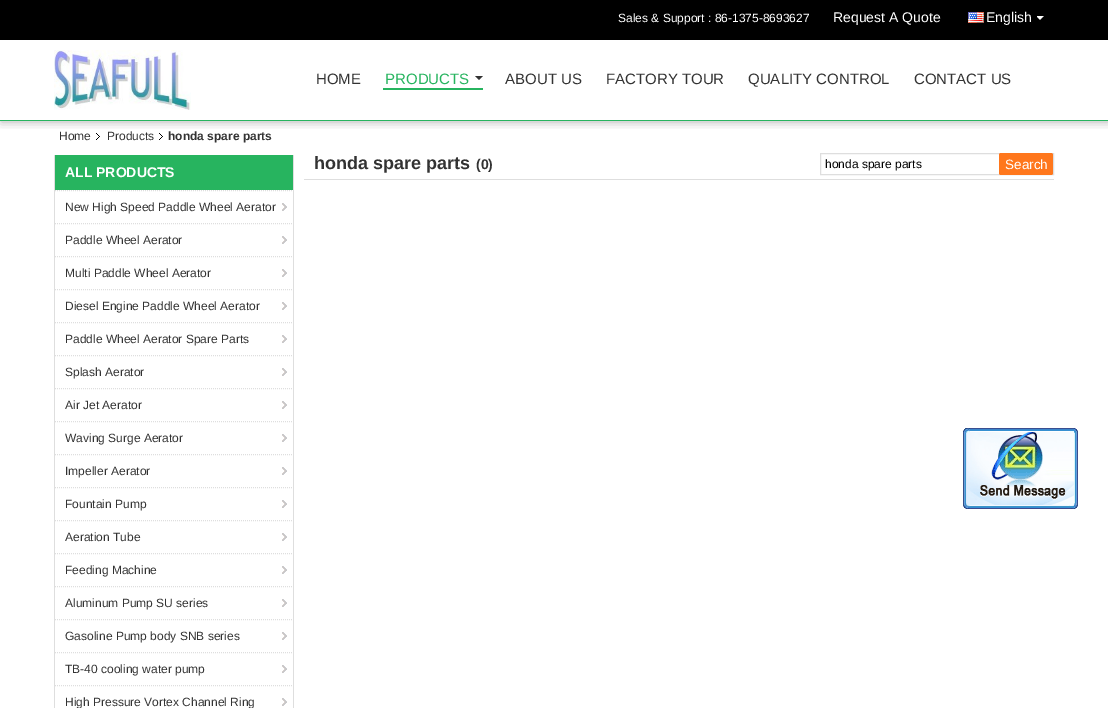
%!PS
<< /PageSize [1108 708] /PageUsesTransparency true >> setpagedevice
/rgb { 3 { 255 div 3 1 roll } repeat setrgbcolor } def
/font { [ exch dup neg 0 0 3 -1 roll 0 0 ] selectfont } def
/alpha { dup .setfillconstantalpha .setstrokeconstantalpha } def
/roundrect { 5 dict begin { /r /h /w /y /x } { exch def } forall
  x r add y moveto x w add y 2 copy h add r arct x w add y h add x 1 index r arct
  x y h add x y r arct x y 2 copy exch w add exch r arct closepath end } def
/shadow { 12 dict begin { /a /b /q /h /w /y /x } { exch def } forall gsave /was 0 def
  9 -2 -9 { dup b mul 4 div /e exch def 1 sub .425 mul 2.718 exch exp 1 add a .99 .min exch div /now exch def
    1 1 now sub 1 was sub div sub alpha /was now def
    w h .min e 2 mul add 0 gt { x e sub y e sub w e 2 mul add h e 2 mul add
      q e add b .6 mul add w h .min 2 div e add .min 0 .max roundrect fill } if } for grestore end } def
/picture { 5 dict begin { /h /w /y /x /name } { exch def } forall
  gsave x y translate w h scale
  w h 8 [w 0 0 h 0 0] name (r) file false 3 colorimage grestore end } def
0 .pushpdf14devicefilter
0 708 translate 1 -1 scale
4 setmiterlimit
255 255 255 rgb
0 0 1108 708 rectfill
gsave
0 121 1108 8 rectclip
0 0 0 rgb
1 1 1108 121 0 5 0.3 shadow
grestore
39 180 95 rgb
0 120 1108 1 rectfill
0 0 0 rgb
0 0 1108 40 rectfill
(img/1.rgb) 968 12 16 11 picture
(img/2.rgb) 1037 16 7 4 picture
(img/3.rgb) 54 50 137 60 picture
39 180 95 rgb
383 88 100 2 rectfill
51 51 51 rgb
475 76 moveto 483 76 lineto 479 80 lineto closepath fill
(img/4.rgb) 96 133 4 7 picture
(img/4.rgb) 159 133 4 7 picture
222 222 222 rgb
304 179 750 1 rectfill
820.5 153.5 233 21 rectstroke
255 119 28 rgb
999 153 54 22 2 roundrect fill
[
  [293 155 1 553 222 222 222]
  [54 155 1 553 222 222 222]
  [55 155 238 35 39 180 95]
] { aload pop rgb rectfill } forall
(img/5.rgb) 282 203 5 8 picture
222 222 222 rgb
[1 1] 0 setdash
55 190.5 moveto 295 190.5 lineto stroke
(img/5.rgb) 282 236 5 8 picture
55 223.5 moveto 295 223.5 lineto stroke
(img/5.rgb) 282 269 5 8 picture
55 256.5 moveto 295 256.5 lineto stroke
(img/5.rgb) 282 302 5 8 picture
55 289.5 moveto 295 289.5 lineto stroke
(img/5.rgb) 282 335 5 8 picture
55 322.5 moveto 295 322.5 lineto stroke
(img/5.rgb) 282 368 5 8 picture
55 355.5 moveto 295 355.5 lineto stroke
(img/5.rgb) 282 401 5 8 picture
55 388.5 moveto 295 388.5 lineto stroke
(img/5.rgb) 282 434 5 8 picture
55 421.5 moveto 295 421.5 lineto stroke
(img/5.rgb) 282 467 5 8 picture
55 454.5 moveto 295 454.5 lineto stroke
(img/5.rgb) 282 500 5 8 picture
55 487.5 moveto 295 487.5 lineto stroke
(img/5.rgb) 282 533 5 8 picture
55 520.5 moveto 295 520.5 lineto stroke
(img/5.rgb) 282 566 5 8 picture
55 553.5 moveto 295 553.5 lineto stroke
(img/5.rgb) 282 599 5 8 picture
55 586.5 moveto 295 586.5 lineto stroke
(img/5.rgb) 282 632 5 8 picture
55 619.5 moveto 295 619.5 lineto stroke
(img/5.rgb) 282 665 5 8 picture
55 652.5 moveto 295 652.5 lineto stroke
(img/5.rgb) 282 698 5 8 picture
55 685.5 moveto 295 685.5 lineto stroke
(img/6.rgb) 963 428 115 81 picture
/LiberationSans-Regular 12 font
255 255 255 rgb
618 22 moveto (Sales & Support : 86-1375-8693627) show
/LiberationSans-Regular 14 font
833 22 moveto (Request A Quote) show
986 22 moveto (English) show
/LiberationSans-Regular 15 font
51 51 51 rgb
316 84 moveto (HOME) show
39 180 95 rgb
385 84 moveto (PRODUCTS) show
51 51 51 rgb
[
  [(ABOUT US) 505 84]
  [(FACTORY TOUR) 606 84]
  [(QUALITY CONTROL) 748 84]
  [(CONTACT US) 914 84]
] { aload pop moveto show } forall
/LiberationSans-Regular 12 font
59 140 moveto (Home) show
107 140 moveto (Products) show
/LiberationSans-Bold 12 font
168 140 moveto (honda spare parts) show
/LiberationSans-Bold 18 font
314 169 moveto (honda spare parts) show
/LiberationSans-Bold 14 font
476 169 moveto (\(0\)) show
/LiberationSans-Regular 12 font
0 0 0 rgb
825 168 moveto (honda spare parts) show
/LiberationSans-Regular 13.5 font
255 255 255 rgb
1005 169 moveto (Search) show
/LiberationSans-Bold 14 font
65 177 moveto (ALL PRODUCTS) show
/LiberationSans-Regular 12 font
51 51 51 rgb
[
  [(New High Speed Paddle Wheel Aerator) 65 211]
  [(Paddle Wheel Aerator) 65 244]
  [(Multi Paddle Wheel Aerator) 65 277]
  [(Diesel Engine Paddle Wheel Aerator) 65 310]
  [(Paddle Wheel Aerator Spare Parts) 65 343]
  [(Splash Aerator) 65 376]
  [(Air Jet Aerator) 65 409]
  [(Waving Surge Aerator) 65 442]
  [(Impeller Aerator) 65 475]
  [(Fountain Pump) 65 508]
  [(Aeration Tube) 65 541]
  [(Feeding Machine) 65 574]
  [(Aluminum Pump SU series) 65 607]
  [(Gasoline Pump body SNB series) 65 640]
  [(TB-40 cooling water pump) 65 673]
  [(High Pressure Vortex Channel Ring) 65 706]
] { aload pop moveto show } forall
.poppdf14devicefilter showpage
